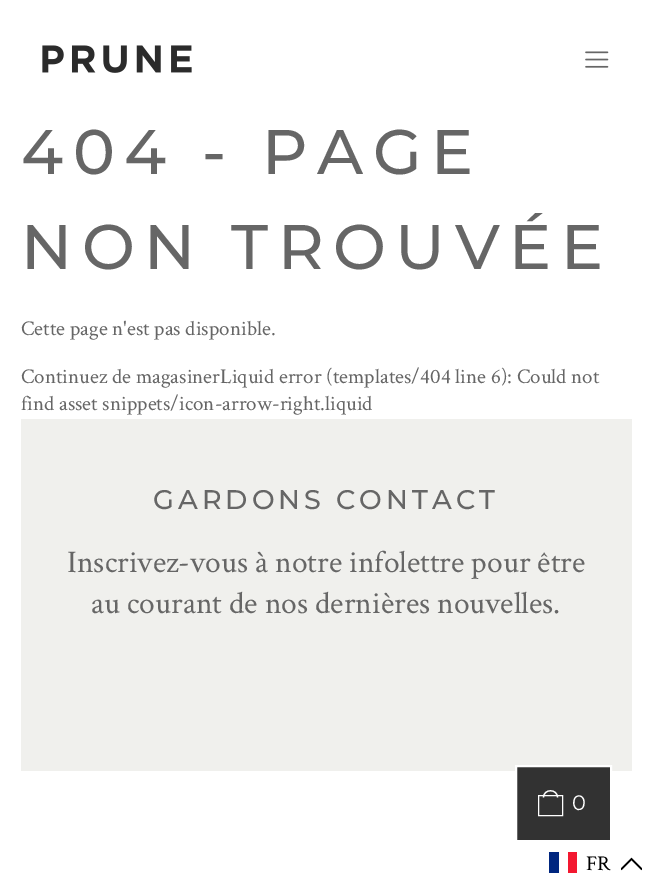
%!PS
<< /PageSize [652 882] >> setpagedevice
/rgb { 3 { 255 div 3 1 roll } repeat setrgbcolor } def
/font { [ exch dup neg 0 0 3 -1 roll 0 0 ] selectfont } def
/picture { 5 dict begin { /h /w /y /x /name } { exch def } forall
  gsave x y translate w h scale
  w h 8 [w 0 0 h 0 0] name (r) file false 3 colorimage grestore end } def
0 882 translate 1 -1 scale
4 setmiterlimit
255 255 255 rgb
0 0 652 882 rectfill
240 240 237 rgb
21 419 611 352 rectfill
(img/1.rgb) 42 45 150 28 picture
(img/2.rgb) 585 51 24 17 picture
50 50 50 rgb
516 766 moveto 611 766 lineto 611 841 lineto 516 841 lineto closepath gsave fill grestore
255 255 255 rgb
2 setlinewidth
stroke
1 setlinewidth
538.5 795.5 24 20 rectstroke
1.2 setlinewidth
543.5 797.5 moveto 543.5 788.5 557.5 788.5 557.5 797.5 curveto stroke
0 38 127 rgb
549 852 10 21 rectfill
243 24 48 rgb
568 852 9 21 rectfill
gsave
621 854 21 21 rectclip
0 0 0 rgb
1.5 setlinewidth
642 869.5 moveto 631.5 859 lineto 621 869.5 lineto stroke
grestore
/Montserrat-Medium 63 font
102 102 102 rgb
21 174 moveto 9.5 0 (404 - PAGE) ashow
21 269 moveto 9.5 0 (NON TROUVÉE) ashow
/CrimsonText-Regular 21 font
[
  [(Cette page n'est pas disponible.) 21 335]
  [(Continuez de magasinerLiquid error \(templates/404 line 6\): Could not) 21 383]
  [(find asset snippets/icon-arrow-right.liquid) 21 410]
] { aload pop moveto show } forall
/Montserrat-Medium 27 font
153 509 moveto 4 0 (GARDONS CONTACT) ashow
/CrimsonText-Regular 31.5 font
67 572 moveto (Inscrivez-vous à notre infolettre pour être) show
91 613 moveto (au courant de nos dernières nouvelles.) show
/Montserrat-Regular 21 font
255 255 255 rgb
572 810 moveto 3 0 (0) ashow
/CrimsonText-Regular 21 font
0 0 0 rgb
586 870 moveto (FR) show
showpage
